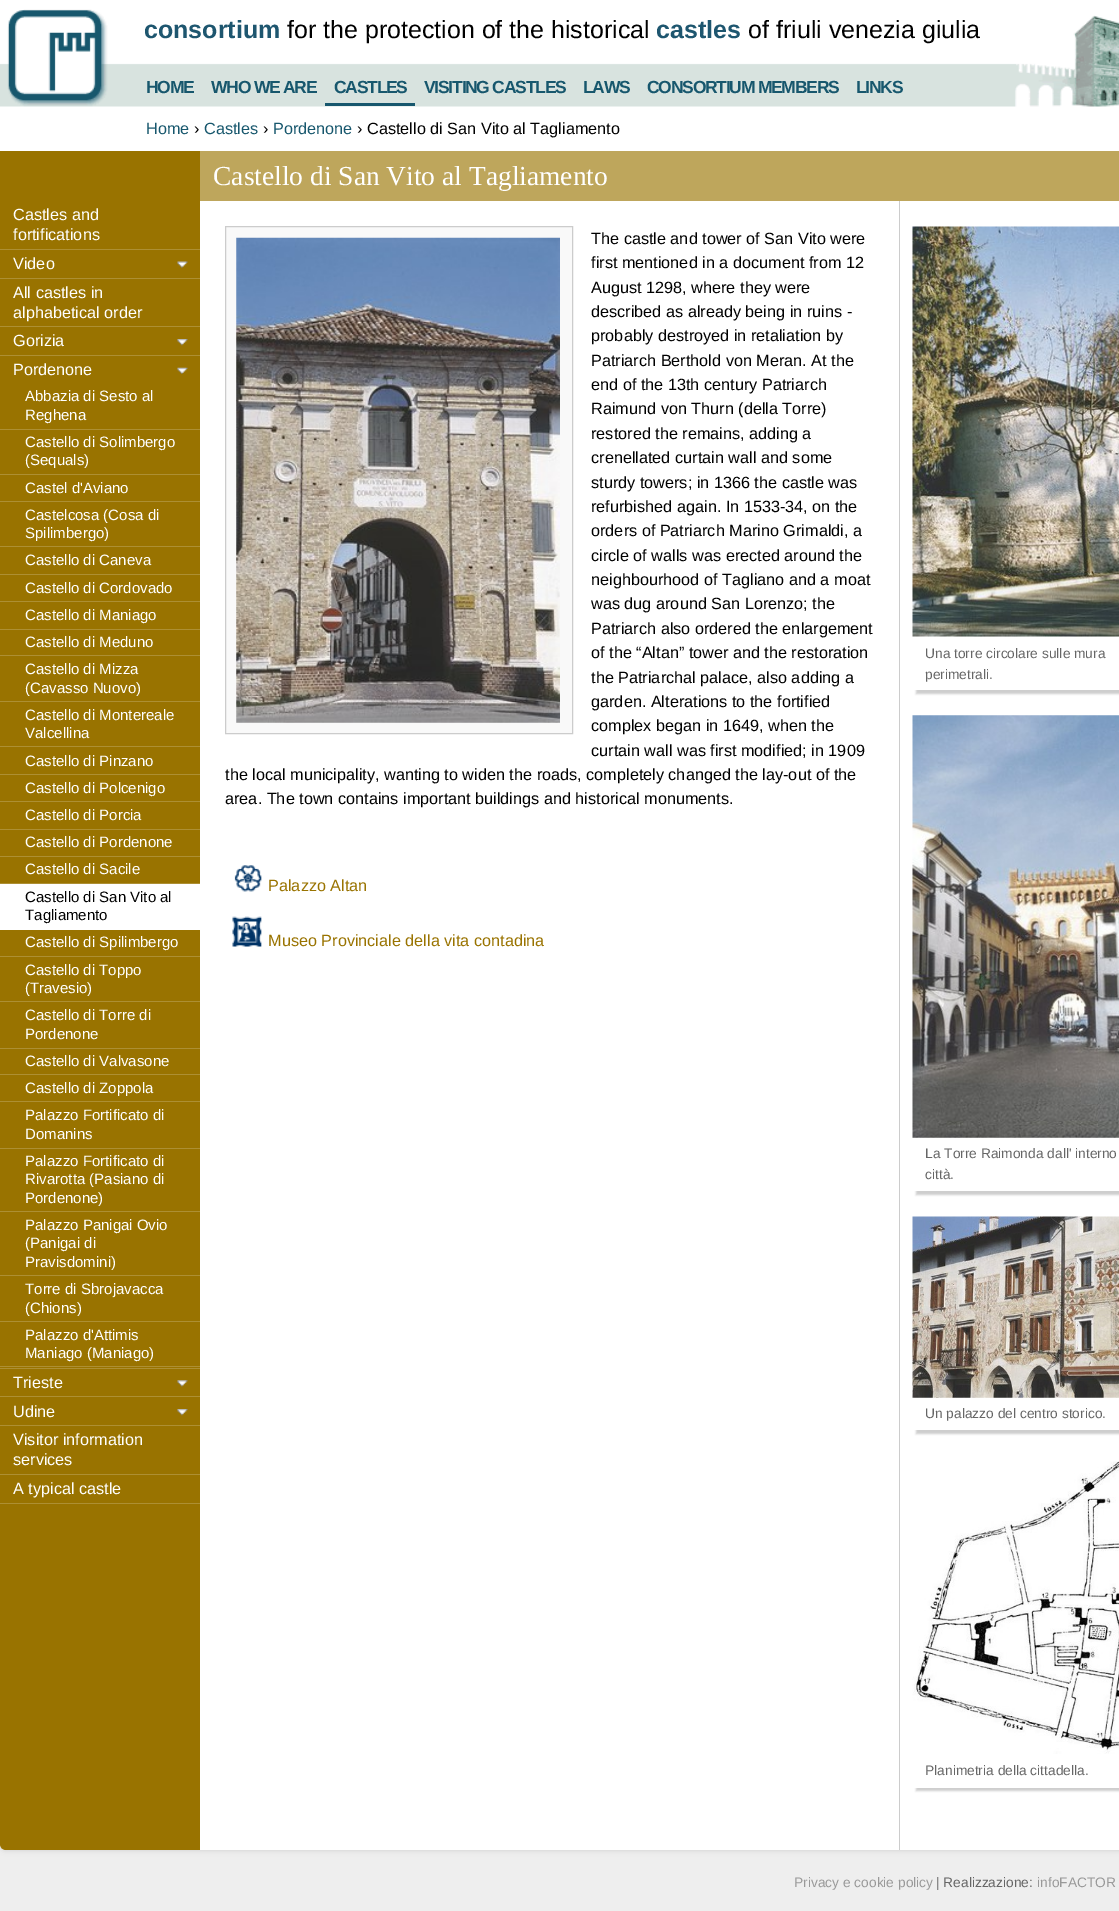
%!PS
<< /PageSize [1119 1911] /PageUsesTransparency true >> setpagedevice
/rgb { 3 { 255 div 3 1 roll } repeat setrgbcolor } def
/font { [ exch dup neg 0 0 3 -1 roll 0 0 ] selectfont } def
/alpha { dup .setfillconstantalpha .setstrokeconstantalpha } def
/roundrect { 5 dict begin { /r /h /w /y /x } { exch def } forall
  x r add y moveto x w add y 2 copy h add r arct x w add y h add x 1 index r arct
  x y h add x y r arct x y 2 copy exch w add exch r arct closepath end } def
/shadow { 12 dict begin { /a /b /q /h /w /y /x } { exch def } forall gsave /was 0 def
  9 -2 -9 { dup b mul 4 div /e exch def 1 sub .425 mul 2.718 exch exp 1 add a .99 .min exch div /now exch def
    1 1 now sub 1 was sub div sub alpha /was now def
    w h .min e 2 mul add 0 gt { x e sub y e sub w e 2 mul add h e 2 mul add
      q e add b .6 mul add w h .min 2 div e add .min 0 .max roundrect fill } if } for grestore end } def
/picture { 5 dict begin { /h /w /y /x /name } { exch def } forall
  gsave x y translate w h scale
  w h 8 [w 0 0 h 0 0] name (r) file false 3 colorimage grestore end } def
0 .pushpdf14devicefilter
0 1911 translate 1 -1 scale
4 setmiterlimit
238 238 238 rgb
0 0 1119 1911 rectfill
204 204 204 rgb
0 -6 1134 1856 6 3 1 shadow
255 255 255 rgb
0 -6 moveto 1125 -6 lineto 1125 1844 lineto 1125 1847.5 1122.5 1850 1119 1850 curveto 6 1850 lineto 2.5 1850 0 1847.5 0 1844 curveto closepath fill
(img/1.rgb) 0 9 1119 98 picture
23 87 109 rgb
325 103 90 3 rectfill
153 115 0 rgb
0 151 moveto 200 151 lineto 200 1850 lineto 6 1850 lineto 2.5 1850 0 1847.5 0 1844 curveto closepath fill
173 143 51 rgb
0 249 200 1 rectfill
0 278 200 1 rectfill
(img/2.rgb) 177 261 11 7 picture
0 326 200 1 rectfill
0 355 200 1 rectfill
(img/3.rgb) 177 339 11 7 picture
0 1368 200 1 rectfill
(img/4.rgb) 177 367 11 7 picture
[
  [0 429 200 1 173 143 51]
  [0 474 200 1 173 143 51]
  [0 501 200 1 173 143 51]
  [0 546 200 1 173 143 51]
  [0 574 200 1 173 143 51]
  [0 601 200 1 173 143 51]
  [0 629 200 1 173 143 51]
  [0 655 200 1 173 143 51]
  [0 701 200 1 173 143 51]
  [0 746 200 1 173 143 51]
  [0 774 200 1 173 143 51]
  [0 801 200 1 173 143 51]
  [0 829 200 1 173 143 51]
  [0 856 200 1 173 143 51]
  [0 883 200 1 173 143 51]
  [0 884 200 46 255 255 255]
  [0 956 200 1 173 143 51]
  [0 1001 200 1 173 143 51]
  [0 1048 200 1 173 143 51]
  [0 1074 200 1 173 143 51]
  [0 1101 200 1 173 143 51]
  [0 1148 200 1 173 143 51]
  [0 1211 200 1 173 143 51]
  [0 1275 200 1 173 143 51]
  [0 1321 200 1 173 143 51]
  [0 1366 200 1 173 143 51]
  [0 1396 200 1 173 143 51]
] { aload pop rgb rectfill } forall
(img/5.rgb) 177 1380 11 7 picture
0 1425 200 1 rectfill
(img/3.rgb) 177 1409 11 7 picture
[
  [0 1474 200 1 173 143 51]
  [0 1503 200 1 173 143 51]
  [200 151 919 50 190 166 92]
  [899 201 1 1649 204 204 204]
] { aload pop rgb rectfill } forall
249 249 249 rgb
225.5 226.5 moveto 572.5 226.5 lineto 572.5 733.5 lineto 225.5 733.5 lineto closepath gsave fill grestore
204 204 204 rgb
stroke
(img/6.rgb) 236 237 324 486 picture
(img/7.rgb) 234 865 28 27 picture
(img/8.rgb) 232 916 30 31 picture
gsave
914 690 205 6 rectclip
916 230 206 464 0 1 1 shadow
grestore
(img/9.rgb) 912 226 207 411 picture
gsave
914 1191 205 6 rectclip
916 719 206 476 0 1 1 shadow
grestore
(img/10.rgb) 912 715 207 423 picture
gsave
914 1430 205 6 rectclip
916 1220 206 214 0 1 1 shadow
grestore
(img/11.rgb) 912 1216 207 182 picture
gsave
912 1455 moveto 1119 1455 lineto 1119 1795 lineto 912 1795 lineto closepath 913 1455 moveto 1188 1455 lineto 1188 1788 lineto 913 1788 lineto closepath eoclip newpath
916 1459 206 332 0 1 1 shadow
grestore
(img/12.rgb) 912 1461 207 293 picture
/LiberationSans-Bold 25 font
30 86 111 rgb
144 38 moveto (consortium) show
/LiberationSans-Regular 25 font
0 0 0 rgb
287 38 moveto (for the protection of the historical) show
/LiberationSans-Bold 25 font
30 86 111 rgb
656 38 moveto (castles) show
/LiberationSans-Regular 25 font
0 0 0 rgb
748 38 moveto (of friuli venezia giulia) show
/LiberationSans-Bold 17.5 font
23 87 109 rgb
146 93 moveto -1.25 0 (HOME) ashow
211 93 moveto -1.25 0 (WHO WE ARE) ashow
334 93 moveto -1.25 0 (CASTLES) ashow
424 93 moveto -1.25 0 (VISITING CASTLES) ashow
583 93 moveto -1.25 0 (LAWS) ashow
647 93 moveto -1.25 0 (CONSORTIUM MEMBERS) ashow
856 93 moveto -1.25 0 (LINKS) ashow
/LiberationSans-Regular 16.25 font
146 134 moveto (Home) show
0 0 0 rgb
194 134 moveto (›) show
23 87 109 rgb
204 134 moveto (Castles) show
0 0 0 rgb
263 134 moveto (›) show
23 87 109 rgb
273 134 moveto (Pordenone) show
0 0 0 rgb
357 134 moveto (› Castello di San Vito al Tagliamento) show
255 255 255 rgb
[
  [(Castles and) 13 220]
  [(fortifications) 13 240]
  [(Video) 13 269]
  [(All castles in) 13 298]
  [(alphabetical order) 13 318]
  [(Gorizia) 13 346]
  [(Pordenone) 13 375]
] { aload pop moveto show } forall
/LiberationSans-Regular 15 font
[
  [(Abbazia di Sesto al) 25 401]
  [(Reghena) 25 420]
  [(Castello di Solimbergo) 25 447]
  [(\(Sequals\)) 25 465]
  [(Castel d'Aviano) 25 493]
  [(Castelcosa \(Cosa di) 25 520]
  [(Spilimbergo\)) 25 538]
  [(Castello di Caneva) 25 565]
  [(Castello di Cordovado) 25 593]
  [(Castello di Maniago) 25 620]
  [(Castello di Meduno) 25 647]
  [(Castello di Mizza) 25 674]
  [(\(Cavasso Nuovo\)) 25 693]
  [(Castello di Montereale) 25 720]
  [(Valcellina) 25 738]
  [(Castello di Pinzano) 25 766]
  [(Castello di Polcenigo) 25 793]
  [(Castello di Porcia) 25 820]
  [(Castello di Pordenone) 25 847]
  [(Castello di Sacile) 25 874]
] { aload pop moveto show } forall
0 0 0 rgb
25 902 moveto (Castello di San Vito al) show
25 920 moveto (Tagliamento) show
255 255 255 rgb
[
  [(Castello di Spilimbergo) 25 947]
  [(Castello di Toppo) 25 975]
  [(\(Travesio\)) 25 993]
  [(Castello di Torre di) 25 1020]
  [(Pordenone) 25 1039]
  [(Castello di Valvasone) 25 1066]
  [(Castello di Zoppola) 25 1093]
  [(Palazzo Fortificato di) 25 1120]
  [(Domanins) 25 1139]
  [(Palazzo Fortificato di) 25 1166]
  [(Rivarotta \(Pasiano di) 25 1184]
  [(Pordenone\)) 25 1203]
  [(Palazzo Panigai Ovio) 25 1230]
  [(\(Panigai di) 25 1248]
  [(Pravisdomini\)) 25 1267]
  [(Torre di Sbrojavacca) 25 1294]
  [(\(Chions\)) 25 1313]
  [(Palazzo d'Attimis) 25 1340]
  [(Maniago \(Maniago\)) 25 1358]
] { aload pop moveto show } forall
/LiberationSans-Regular 16.25 font
[
  [(Trieste) 13 1388]
  [(Udine) 13 1417]
  [(Visitor information) 13 1445]
  [(services) 13 1465]
  [(A typical castle) 13 1494]
] { aload pop moveto show } forall
/LiberationSerif-Regular 27.5 font
213 185 moveto (Castello di San Vito al Tagliamento) show
/LiberationSans-Regular 16.25 font
0 0 0 rgb
[
  [(The castle and tower of San Vito were) 591 244]
  [(first mentioned in a document from 12) 591 268]
  [(August 1298, where they were) 591 293]
  [(described as already being in ruins -) 591 317]
  [(probably destroyed in retaliation by) 591 341]
  [(Patriarch Berthold von Meran. At the) 591 366]
  [(end of the 13th century Patriarch) 591 390]
  [(Raimund von Thurn \(della Torre\)) 591 414]
  [(restored the remains, adding a) 591 439]
  [(crenellated curtain wall and some) 591 463]
  [(sturdy towers; in 1366 the castle was) 591 488]
  [(refurbished again. In 1533-34, on the) 591 512]
  [(orders of Patriarch Marino Grimaldi, a) 591 536]
  [(circle of walls was erected around the) 591 561]
  [(neighbourhood of Tagliano and a moat) 591 585]
  [(was dug around San Lorenzo; the) 591 609]
  [(Patriarch also ordered the enlargement) 591 634]
  [(of the “Altan” tower and the restoration) 591 658]
  [(the Patriarchal palace, also adding a) 591 683]
  [(garden. Alterations to the fortified) 591 707]
  [(complex began in 1649, when the) 591 731]
  [(curtain wall was first modified; in 1909) 591 756]
  [(the local municipality, wanting to widen the roads, completely changed the lay-out of the) 225 780]
  [(area. The town contains important buildings and historical monuments.) 225 804]
] { aload pop moveto show } forall
153 115 0 rgb
268 891 moveto (Palazzo Altan) show
268 946 moveto (Museo Provinciale della vita contadina) show
/LiberationSans-Regular 13.75 font
102 102 102 rgb
[
  [(Una torre circolare sulle mura) 925 658]
  [(perimetrali.) 925 679]
  [(La Torre Raimonda dall' interno) 925 1158]
  [(città.) 925 1179]
  [(Un palazzo del centro storico.) 925 1418]
  [(Planimetria della cittadella.) 925 1775]
] { aload pop moveto show } forall
153 153 153 rgb
794 1887 moveto (Privacy e cookie policy) show
102 102 102 rgb
936 1887 moveto (| Realizzazione:) show
153 153 153 rgb
1037 1887 moveto (infoFACTOR) show
.poppdf14devicefilter showpage
